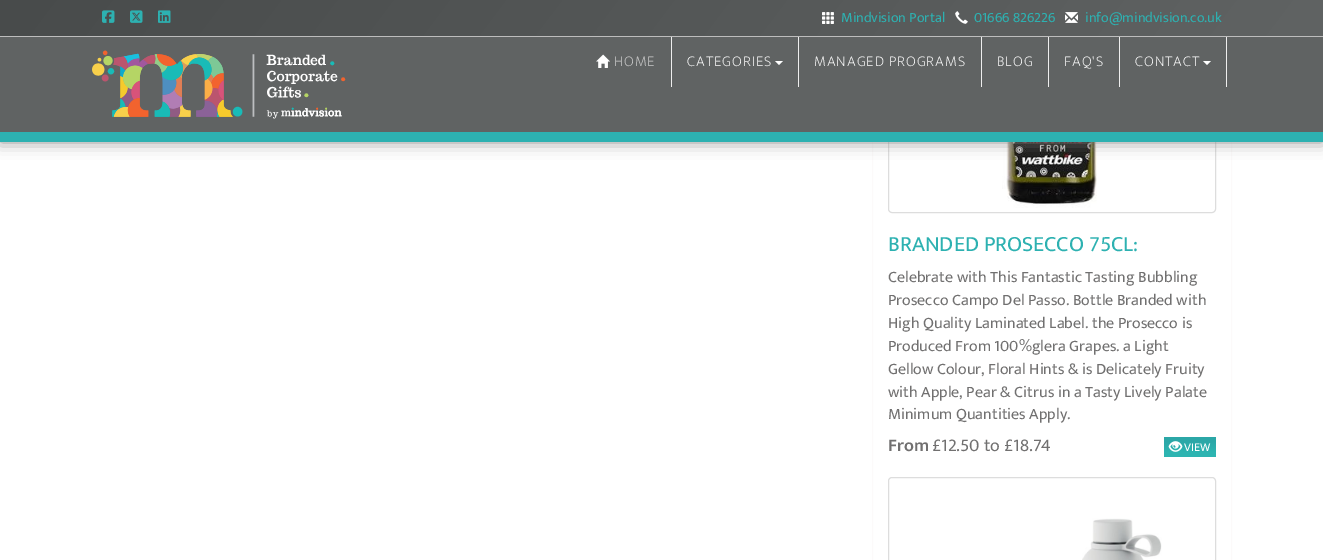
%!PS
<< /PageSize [1323 560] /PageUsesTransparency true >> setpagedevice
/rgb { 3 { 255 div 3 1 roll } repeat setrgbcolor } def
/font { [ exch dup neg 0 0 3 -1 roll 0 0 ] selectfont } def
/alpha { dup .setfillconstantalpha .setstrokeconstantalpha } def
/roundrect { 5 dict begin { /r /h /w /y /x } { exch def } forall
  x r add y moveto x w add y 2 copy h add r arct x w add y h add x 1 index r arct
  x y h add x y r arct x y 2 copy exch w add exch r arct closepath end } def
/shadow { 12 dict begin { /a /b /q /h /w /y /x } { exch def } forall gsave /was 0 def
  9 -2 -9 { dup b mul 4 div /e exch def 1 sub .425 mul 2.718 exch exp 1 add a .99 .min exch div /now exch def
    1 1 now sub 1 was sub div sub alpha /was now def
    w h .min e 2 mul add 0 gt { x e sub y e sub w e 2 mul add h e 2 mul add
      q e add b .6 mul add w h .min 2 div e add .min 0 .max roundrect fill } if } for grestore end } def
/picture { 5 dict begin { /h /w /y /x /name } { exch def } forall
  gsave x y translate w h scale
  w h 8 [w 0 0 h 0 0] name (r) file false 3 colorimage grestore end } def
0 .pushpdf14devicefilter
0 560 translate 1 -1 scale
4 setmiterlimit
255 255 255 rgb
0 0 1323 560 rectfill
252 250 250 rgb
872.5 -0.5 359 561 rectstroke
221 221 221 rgb
888.5 -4.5 327 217 3.5 roundrect stroke
(img/9.rgb) 1002 142 95 66 picture
130 130 130 rgb
0 0 1323 142 0 8 0.9 shadow
96 99 99 rgb
0 37 1323 95 rectfill
45 177 177 rgb
0 132 1323 10 rectfill
gsave 0 0 moveto 1323 0 lineto 1323 36 lineto 0 36 lineto closepath clip newpath
<< /ShadingType 2 /ColorSpace /DeviceRGB /Coords [231 -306 1092 342] /Extend [true true] /Function << /FunctionType 2 /Domain [0 1] /C0 [0.282 0.294 0.294] /C1 [0.376 0.388 0.388] /N 1 >> >> shfill grestore
189 189 189 rgb
0 36 1323 1 rectfill
(img/1.rgb) 102 10 13 13 picture
(img/2.rgb) 130 10 13 13 picture
(img/3.rgb) 158 10 13 13 picture
(img/4.rgb) 822 12 12 12 picture
(img/5.rgb) 955 11 13 13 picture
(img/6.rgb) 1065 12 13 11 picture
(img/7.rgb) 92 50 254 69 picture
238 238 238 rgb
671 37 1 50 rectfill
(img/8.rgb) 596 54 14 14 picture
798 37 1 50 rectfill
255 255 255 rgb
775 61 moveto 783 61 lineto 779 65 lineto closepath fill
[
  [981 37 1 50 238 238 238]
  [1048 37 1 50 238 238 238]
  [1119 37 1 50 238 238 238]
  [1226 37 1 50 238 238 238]
] { aload pop rgb rectfill } forall
255 255 255 rgb
1203 61 moveto 1211 61 lineto 1207 65 lineto closepath fill
gsave 1164 437 52 20 3 roundrect clip newpath
<< /ShadingType 2 /ColorSpace /DeviceRGB /Coords [1190 437 1190 457] /Extend [true true] /Function << /FunctionType 3 /Domain [0 1] /Functions [<< /FunctionType 2 /Domain [0 1] /C0 [0.169 0.655 0.655] /C1 [0.169 0.655 0.655] /N 1 >> << /FunctionType 2 /Domain [0 1] /C0 [0.169 0.655 0.655] /C1 [0.176 0.706 0.694] /N 1 >> << /FunctionType 2 /Domain [0 1] /C0 [0.176 0.706 0.694] /C1 [0.176 0.706 0.694] /N 1 >>] /Bounds [0.22 0.77] /Encode [0 1 0 1 0 1] >> >> shfill grestore
(img/10.rgb) 1168 441 15 11 picture
221 221 221 rgb
888.5 477.5 327 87 3.5 roundrect stroke
(img/11.rgb) 1082 518 80 42 picture
/EkMukta-Regular 14.25 font
45 177 177 rgb
[
  [(Mindvision Portal) 841 22]
  [(01666 826226) 974 22]
  [(info@mindvision.co.uk) 1085 22]
] { aload pop moveto show } forall
/EkMukta-ExtraLight 15 font
204 204 204 rgb
614 66 moveto 1 0 (HOME) ashow
255 255 255 rgb
687 66 moveto 1 0 (CATEGORIES) ashow
814 66 moveto 1 0 (MANAGED PROGRAMS) ashow
997 66 moveto 1 0 (BLOG) ashow
1064 66 moveto 1 0 (FAQ'S) ashow
1135 66 moveto 1 0 (CONTACT) ashow
/EkMukta-Regular 22 font
45 177 177 rgb
888 251 moveto (BRANDED PROSECCO 75CL:) show
/EkMukta-Regular 16 font
113 112 112 rgb
[
  [(Celebrate with This Fantastic Tasting Bubbling) 888 282]
  [(Prosecco Campo Del Passo. Bottle Branded with) 888 305]
  [(High Quality Laminated Label. the Prosecco is) 888 328]
  [(Produced From 100%glera Grapes. a Light) 888 351]
  [(Gellow Colour, Floral Hints & is Delicately Fruity) 888 374]
  [(with Apple, Pear & Citrus in a Tasty Lively Palate) 888 397]
  [(Minimum Quantities Apply.) 888 419]
] { aload pop moveto show } forall
/EkMukta-SemiBold 18 font
888 451 moveto (From) show
/EkMukta-Regular 18 font
932 451 moveto (£12.50 to £18.74) show
/EkMukta-Regular 12 font
255 255 255 rgb
1184 451 moveto (VIEW) show
.poppdf14devicefilter showpage
